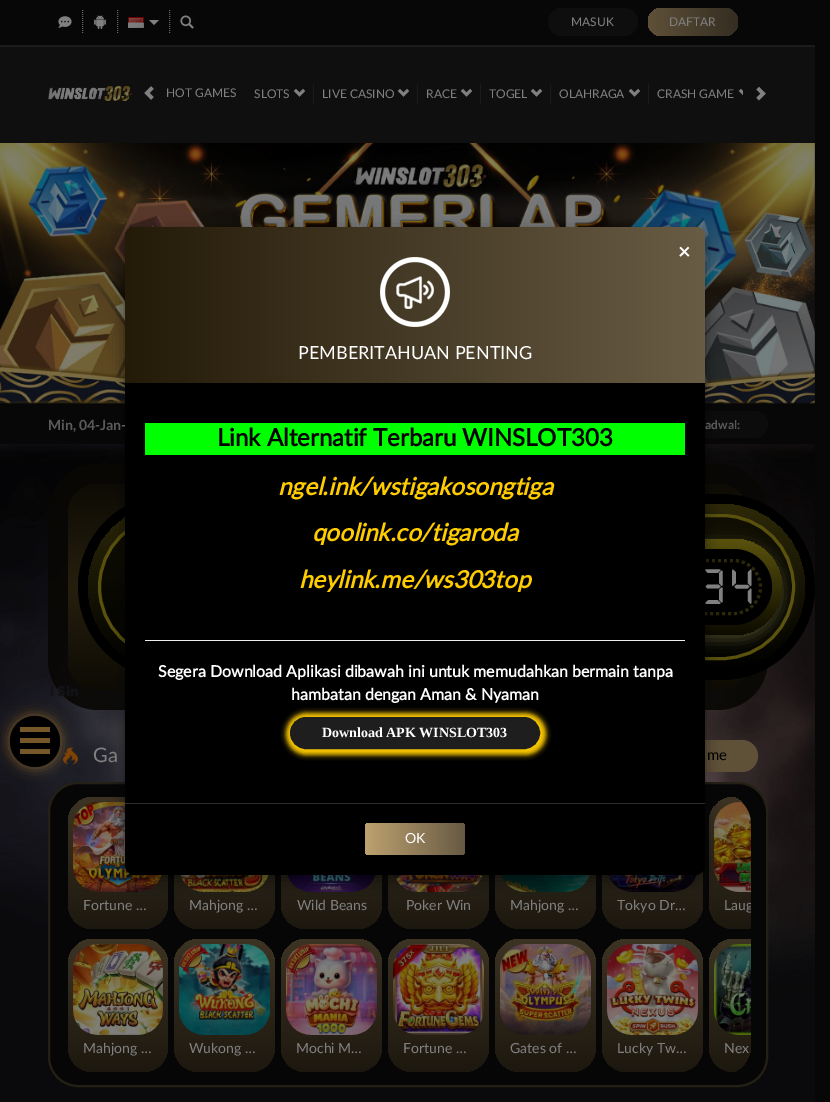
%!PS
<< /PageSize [830 1102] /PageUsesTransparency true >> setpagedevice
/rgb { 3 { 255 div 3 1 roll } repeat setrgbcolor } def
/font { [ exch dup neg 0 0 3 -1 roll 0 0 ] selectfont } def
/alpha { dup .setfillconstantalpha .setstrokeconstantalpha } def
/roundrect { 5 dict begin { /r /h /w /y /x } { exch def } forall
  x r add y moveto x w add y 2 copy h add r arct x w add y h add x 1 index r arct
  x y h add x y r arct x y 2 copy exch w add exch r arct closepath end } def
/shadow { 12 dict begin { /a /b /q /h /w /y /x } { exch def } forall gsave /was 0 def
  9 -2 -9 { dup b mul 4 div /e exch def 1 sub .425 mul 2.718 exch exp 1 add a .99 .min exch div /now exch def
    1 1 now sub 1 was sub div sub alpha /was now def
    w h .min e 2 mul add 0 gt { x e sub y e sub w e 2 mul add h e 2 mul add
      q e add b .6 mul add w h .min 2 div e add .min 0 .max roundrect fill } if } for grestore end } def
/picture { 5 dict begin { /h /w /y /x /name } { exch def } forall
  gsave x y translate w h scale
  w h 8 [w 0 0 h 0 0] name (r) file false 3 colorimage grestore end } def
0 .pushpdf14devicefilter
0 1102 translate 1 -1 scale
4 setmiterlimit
7 7 7 rgb
0 0 830 1102 rectfill
(img/1.rgb) 58 16 14 12 picture
102 102 102 rgb
[1 1] 0 setdash
82.5 10 moveto 82.5 34 lineto stroke
(img/2.rgb) 94 15 12 14 picture
117.5 10 moveto 117.5 34 lineto stroke
(img/3.rgb) 128 17 16 11 picture
128 128 128 rgb
149 20 moveto 159 20 lineto 154 25 lineto closepath fill
102 102 102 rgb
169.5 10 moveto 169.5 34 lineto stroke
(img/4.rgb) 180 15 14 14 picture
14 14 14 rgb
548 8 90 28 14 roundrect fill
gsave 648 8 90 28 14 roundrect clip newpath
<< /ShadingType 2 /ColorSpace /DeviceRGB /Coords [648 22 738 22] /Extend [true true] /Function << /FunctionType 2 /Domain [0 1] /C0 [0.373 0.318 0.22] /C1 [0.204 0.176 0.133] /N 1 >> >> shfill grestore
15 15 15 rgb
0 47 815 96 rectfill
27 27 27 rgb
0 45 815 2 rectfill
(img/5.rgb) 48 86 84 16 picture
(img/6.rgb) 144 86 10 14 picture
(img/7.rgb) 293 88 13 9 picture
313 84 1 20 rectfill
(img/7.rgb) 397 88 13 9 picture
417 84 1 20 rectfill
(img/7.rgb) 460 88 13 9 picture
480 84 1 20 rectfill
(img/7.rgb) 530 88 13 9 picture
550 84 1 20 rectfill
(img/7.rgb) 628 88 13 9 picture
648 84 1 20 rectfill
(img/8.rgb) 738 88 5 8 picture
(img/9.rgb) 756 86 10 15 picture
(img/10.rgb) 0 143 815 261 picture
12 12 12 rgb
264 411 504 27 13.5 roundrect fill
(img/12.rgb) 0 444 815 658 picture
0.9 alpha
8 7 4 rgb
48 464 720 246 50 roundrect fill
1 alpha
gsave 68 484 680 206 30 roundrect clip newpath
<< /ShadingType 2 /ColorSpace /DeviceRGB /Coords [408 484 408 690] /Extend [true true] /Function << /FunctionType 3 /Domain [0 1] /Functions [<< /FunctionType 2 /Domain [0 1] /C0 [0.051 0.043 0.016] /C1 [0.149 0.122 0.055] /N 1 >> << /FunctionType 2 /Domain [0 1] /C0 [0.149 0.122 0.055] /C1 [0.051 0.043 0.016] /N 1 >>] /Bounds [0.5] /Encode [0 1 0 1] >> >> shfill grestore
0 0 0 rgb
78 494 737 186 93 roundrect fill
gsave 88 504 717 166 83 roundrect clip newpath
<< /ShadingType 2 /ColorSpace /DeviceRGB /Coords [447 504 447 670] /Extend [true true] /Function << /FunctionType 2 /Domain [0 1] /C0 [0.176 0.161 0.031] /C1 [0 0 0] /N 1 >> >> shfill grestore
0.6 alpha
99.5 515.5 694 143 71.5 roundrect fill
1 alpha
90 82 12 rgb
3 setlinewidth
[] 0 setdash
99.5 515.5 694 143 71.5 roundrect stroke
128 126 72 rgb
352 544 430 96 48 7.5 0.5 shadow
gsave 352 539 430 96 48 roundrect clip newpath
<< /ShadingType 2 /ColorSpace /DeviceRGB /Coords [567 539 567 635] /Extend [true true] /Function << /FunctionType 2 /Domain [0 1] /C0 [0.353 0.322 0.047] /C1 [0.047 0.043 0] /N 1 >> >> shfill grestore
0 0 0 rgb
362 549 410 76 38 roundrect fill
45 41 8 rgb
[3 3] 0 setdash
400 560.5 moveto 734 560.5 lineto 748.5 560.5 760.5 572.5 760.5 587 curveto 760.5 601.5 748.5 613.5 734 613.5 curveto 400 613.5 lineto 385.5 613.5 373.5 601.5 373.5 587 curveto 373.5 572.5 385.5 560.5 400 560.5 curveto closepath stroke
95 81 56 rgb
567 740 191 32 16 roundrect fill
6 6 6 rgb
49 783 718 303 29 roundrect gsave fill grestore
37 32 22 rgb
2 setlinewidth
[] 0 setdash
stroke
gsave 68 797 100 132 25 roundrect clip newpath
<< /ShadingType 2 /ColorSpace /DeviceRGB /Coords [118 797 118 929] /Extend [true true] /Function << /FunctionType 2 /Domain [0 1] /C0 [0.235 0.2 0.137] /C1 [0.114 0.094 0.059] /N 1 >> >> shfill grestore
(img/14.rgb) 73 802 89 90 picture
gsave 174 797 101 132 25 roundrect clip newpath
<< /ShadingType 2 /ColorSpace /DeviceRGB /Coords [225 797 225 929] /Extend [true true] /Function << /FunctionType 2 /Domain [0 1] /C0 [0.235 0.2 0.137] /C1 [0.114 0.094 0.059] /N 1 >> >> shfill grestore
(img/16.rgb) 180 875 89 17 picture
gsave 281 797 101 132 25 roundrect clip newpath
<< /ShadingType 2 /ColorSpace /DeviceRGB /Coords [332 797 332 929] /Extend [true true] /Function << /FunctionType 2 /Domain [0 1] /C0 [0.235 0.2 0.137] /C1 [0.114 0.094 0.059] /N 1 >> >> shfill grestore
(img/18.rgb) 287 875 89 17 picture
gsave 388 797 101 132 25 roundrect clip newpath
<< /ShadingType 2 /ColorSpace /DeviceRGB /Coords [439 797 439 929] /Extend [true true] /Function << /FunctionType 2 /Domain [0 1] /C0 [0.235 0.2 0.137] /C1 [0.114 0.094 0.059] /N 1 >> >> shfill grestore
(img/20.rgb) 394 875 89 17 picture
gsave 495 797 101 132 25 roundrect clip newpath
<< /ShadingType 2 /ColorSpace /DeviceRGB /Coords [546 797 546 929] /Extend [true true] /Function << /FunctionType 2 /Domain [0 1] /C0 [0.235 0.2 0.137] /C1 [0.114 0.094 0.059] /N 1 >> >> shfill grestore
(img/22.rgb) 501 875 89 17 picture
gsave 602 797 101 132 25 roundrect clip newpath
<< /ShadingType 2 /ColorSpace /DeviceRGB /Coords [653 797 653 929] /Extend [true true] /Function << /FunctionType 2 /Domain [0 1] /C0 [0.235 0.2 0.137] /C1 [0.114 0.094 0.059] /N 1 >> >> shfill grestore
(img/24.rgb) 608 874 89 18 picture
gsave
65 794 686 281 30 roundrect clip newpath
gsave 734 797 moveto 751 797 lineto 751 929 lineto 734 929 lineto 720 929 709 918 709 904 curveto 709 822 lineto 709 808 720 797 734 797 curveto closepath clip newpath
<< /ShadingType 2 /ColorSpace /DeviceRGB /Coords [760 797 760 929] /Extend [true true] /Function << /FunctionType 2 /Domain [0 1] /C0 [0.235 0.2 0.137] /C1 [0.114 0.094 0.059] /N 1 >> >> shfill grestore
grestore
(img/26.rgb) 714 802 37 90 picture
0 0 0 rgb
125 232 580 648 10 7.5 0.5 shadow
gsave 135 227 moveto 695 227 lineto 700.5 227 705 231.5 705 237 curveto 705 383 lineto 125 383 lineto 125 237 lineto 125 231.5 129.5 227 135 227 curveto closepath clip newpath
<< /ShadingType 2 /ColorSpace /DeviceRGB /Coords [125 305 705 305] /Extend [true true] /Function << /FunctionType 2 /Domain [0 1] /C0 [0.137 0.102 0.031] /C1 [0.412 0.361 0.271] /N 1 >> >> shfill grestore
(img/11.rgb) 380 257 70 70 picture
125 803 moveto 705 803 lineto 705 865 lineto 705 870.5 700.5 875 695 875 curveto 135 875 lineto 129.5 875 125 870.5 125 865 curveto closepath fill
45 45 45 rgb
125 803 580 1 rectfill
gsave 365 823 100 32 4 roundrect clip newpath
<< /ShadingType 2 /ColorSpace /DeviceRGB /Coords [365 839 465 839] /Extend [true true] /Function << /FunctionType 2 /Domain [0 1] /C0 [0.741 0.635 0.439] /C1 [0.404 0.353 0.263] /N 1 >> >> shfill grestore
(img/13.rgb) 63 747 15 18 picture
117 87 41 rgb
9 715 52 53 26 6 1 shadow
0 0 0 rgb
10 716 50 51 25 roundrect fill
[
  [20 727 30 5 117 87 41]
  [20 738 30 5 117 87 41]
  [20 749 30 5 117 87 41]
] { aload pop rgb rectfill } forall
gsave 68 939 100 133 25 roundrect clip newpath
<< /ShadingType 2 /ColorSpace /DeviceRGB /Coords [118 939 118 1072] /Extend [true true] /Function << /FunctionType 2 /Domain [0 1] /C0 [0.235 0.2 0.137] /C1 [0.114 0.094 0.059] /N 1 >> >> shfill grestore
(img/15.rgb) 73 944 90 91 picture
gsave 174 939 101 133 25 roundrect clip newpath
<< /ShadingType 2 /ColorSpace /DeviceRGB /Coords [225 939 225 1072] /Extend [true true] /Function << /FunctionType 2 /Domain [0 1] /C0 [0.235 0.2 0.137] /C1 [0.114 0.094 0.059] /N 1 >> >> shfill grestore
(img/17.rgb) 179 944 91 91 picture
gsave 281 939 101 133 25 roundrect clip newpath
<< /ShadingType 2 /ColorSpace /DeviceRGB /Coords [332 939 332 1072] /Extend [true true] /Function << /FunctionType 2 /Domain [0 1] /C0 [0.235 0.2 0.137] /C1 [0.114 0.094 0.059] /N 1 >> >> shfill grestore
(img/19.rgb) 286 944 91 91 picture
gsave 388 939 101 133 25 roundrect clip newpath
<< /ShadingType 2 /ColorSpace /DeviceRGB /Coords [439 939 439 1072] /Extend [true true] /Function << /FunctionType 2 /Domain [0 1] /C0 [0.235 0.2 0.137] /C1 [0.114 0.094 0.059] /N 1 >> >> shfill grestore
(img/21.rgb) 393 944 91 91 picture
gsave 495 939 101 133 25 roundrect clip newpath
<< /ShadingType 2 /ColorSpace /DeviceRGB /Coords [546 939 546 1072] /Extend [true true] /Function << /FunctionType 2 /Domain [0 1] /C0 [0.235 0.2 0.137] /C1 [0.114 0.094 0.059] /N 1 >> >> shfill grestore
(img/23.rgb) 500 944 91 91 picture
gsave 602 939 101 133 25 roundrect clip newpath
<< /ShadingType 2 /ColorSpace /DeviceRGB /Coords [653 939 653 1072] /Extend [true true] /Function << /FunctionType 2 /Domain [0 1] /C0 [0.235 0.2 0.137] /C1 [0.114 0.094 0.059] /N 1 >> >> shfill grestore
(img/25.rgb) 607 944 91 91 picture
gsave
65 794 686 281 30 roundrect clip newpath
gsave 734 939 moveto 751 939 lineto 751 1072 lineto 734 1072 lineto 720 1072 709 1061 709 1047 curveto 709 964 lineto 709 950 720 939 734 939 curveto closepath clip newpath
<< /ShadingType 2 /ColorSpace /DeviceRGB /Coords [760 939 760 1072] /Extend [true true] /Function << /FunctionType 2 /Domain [0 1] /C0 [0.235 0.2 0.137] /C1 [0.114 0.094 0.059] /N 1 >> >> shfill grestore
grestore
(img/27.rgb) 714 944 37 91 picture
/Lato-Regular 12 font
128 128 128 rgb
[
  [(MASUK) 571 26]
  [(DAFTAR) 669 26]
  [(HOT GAMES) 166 97]
  [(SLOTS) 254 98]
  [(LIVE CASINO) 322 98]
  [(RACE) 426 98]
  [(TOGEL) 489 98]
  [(OLAHRAGA) 559 98]
  [(CRASH GAME) 657 98]
] { aload pop moveto show } forall
/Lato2-Bold 21 font
255 255 255 rgb
678 259 moveto (×) show
/Lato-Regular 18 font
298 359 moveto (PEMBERITAHUAN PENTING) show
/Lato-Regular 14 font
405 843 moveto (OK) show
/Lato-Bold 14 font
91 91 91 rgb
48 430 moveto (Min, 04-Jan-) show
/Lato-Bold 12 font
705 429 moveto (adwal:) show
/Raleway-Thin 14 font
19 18 22 rgb
50 696 moveto (i Sin) show
/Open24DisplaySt-Regular 50 font
128 128 128 rgb
705 604 moveto 5 0 (34) ashow
0 0 0 rgb
125 383 580 420 rectfill
238 238 238 rgb
145 640 540 1 rectfill
255 204 0 rgb
286 713 260 42 21 2.5 1 shadow
30 30 30 rgb
291 718 248 30 15 roundrect gsave fill grestore
stroke
/LiberationSerif-Bold 14 font
255 255 255 rgb
322 737 moveto (Download APK WINSLOT303) show
/Lato2-Bold 16 font
291 700 moveto (hambatan dengan Aman & Nyaman) show
158 677 moveto (Segera Download Aplikasi dibawah ini untuk memudahkan bermain tanpa) show
/Lato-BoldItalic 24 font
255 204 0 rgb
[
  [(heylink.me/ws303top) 299 588]
  [(qoolink.co/tigaroda) 312 541]
  [(ngel.ink/wstigakosongtiga) 278 495]
] { aload pop moveto show } forall
0 255 0 rgb
145 423 540 32 rectfill
/Lato2-Bold 24 font
0 0 0 rgb
217 446 moveto (Link Alternatif Terbaru WINSLOT303) show
/Lato-Regular 20 font
128 128 128 rgb
93 762 moveto (Ga) show
/Lato-Regular 15 font
0 0 0 rgb
707 760 moveto (me) show
/Lato-Regular 14 font
128 128 128 rgb
[
  [(Fortune …) 83 910]
  [(Mahjong …) 83 1053]
  [(Mahjong …) 189 910]
  [(Wukong …) 189 1053]
  [(Wild Beans) 297 910]
  [(Mochi M…) 296 1053]
  [(Poker Win) 406 910]
  [(Fortune …) 403 1053]
  [(Mahjong …) 510 910]
  [(Gates of …) 510 1053]
  [(Tokyo Dr…) 617 910]
  [(Lucky Tw…) 617 1053]
] { aload pop moveto show } forall
gsave
65 794 686 281 30 roundrect clip newpath
724 910 moveto (Laug) show
grestore
724 1053 moveto (Nex) show
.poppdf14devicefilter showpage
